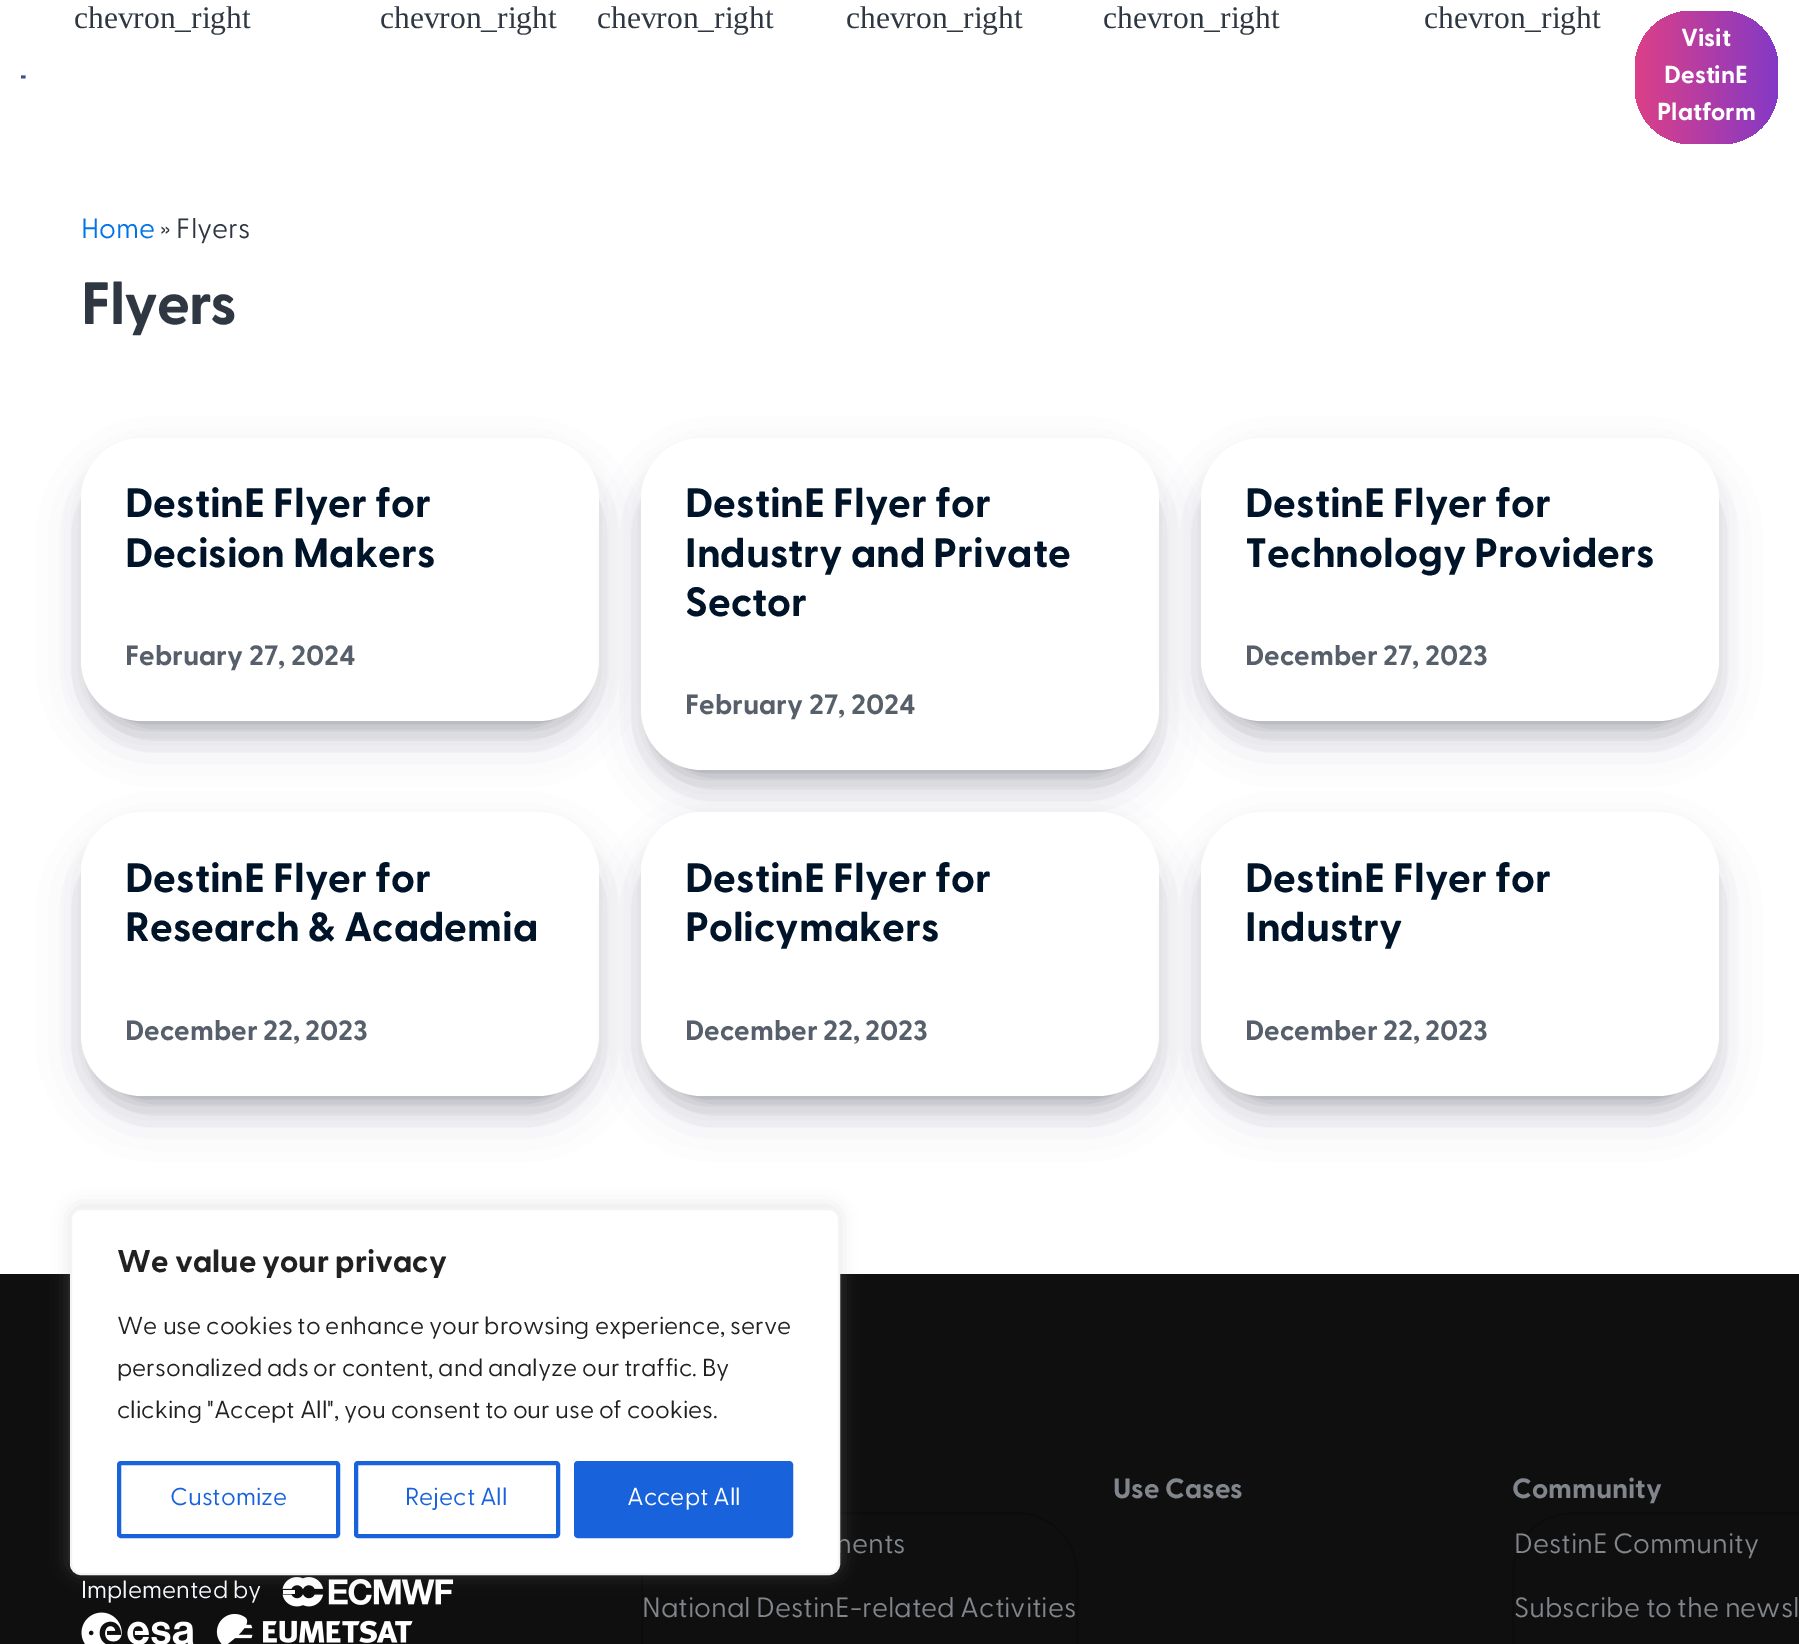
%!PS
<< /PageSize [1799 1644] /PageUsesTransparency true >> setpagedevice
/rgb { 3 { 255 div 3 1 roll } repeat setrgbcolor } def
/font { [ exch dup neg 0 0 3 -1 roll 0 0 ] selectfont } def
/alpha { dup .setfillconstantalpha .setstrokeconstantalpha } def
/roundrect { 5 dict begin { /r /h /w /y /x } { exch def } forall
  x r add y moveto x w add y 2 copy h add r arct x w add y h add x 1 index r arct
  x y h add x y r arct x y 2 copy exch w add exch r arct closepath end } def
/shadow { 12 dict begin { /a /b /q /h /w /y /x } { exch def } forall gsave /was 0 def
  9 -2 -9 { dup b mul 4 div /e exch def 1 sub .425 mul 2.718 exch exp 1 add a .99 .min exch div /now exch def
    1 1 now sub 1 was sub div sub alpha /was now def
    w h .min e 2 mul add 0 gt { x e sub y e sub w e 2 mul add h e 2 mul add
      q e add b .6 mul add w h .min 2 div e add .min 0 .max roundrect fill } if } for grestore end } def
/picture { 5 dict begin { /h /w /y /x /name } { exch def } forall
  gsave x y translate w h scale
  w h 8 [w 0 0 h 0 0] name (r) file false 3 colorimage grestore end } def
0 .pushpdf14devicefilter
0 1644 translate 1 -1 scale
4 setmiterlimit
255 255 255 rgb
0 0 1799 1644 rectfill
(img/1.rgb) 21 75 5 4 picture
gsave 1635 11 143 133 56 roundrect clip newpath
<< /ShadingType 2 /ColorSpace /DeviceRGB /Coords [1635 77 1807 77] /Extend [true true] /Function << /FunctionType 2 /Domain [0 1] /C0 [0.863 0.251 0.529] /C1 [0.447 0.22 0.827] /N 1 >> >> shfill grestore
0 0 0 rgb
95 466 490 255 47 14 0.3 shadow
50 50 93 rgb
89 469 501 266 53 23.5 0.25 shadow
255 255 255 rgb
81 438 518 283 61 roundrect fill
0 0 0 rgb
655 466 490 304 47 14 0.3 shadow
50 50 93 rgb
649 469 501 315 53 23.5 0.25 shadow
255 255 255 rgb
641 438 518 332 61 roundrect fill
0 0 0 rgb
1215 466 490 255 47 14 0.3 shadow
50 50 93 rgb
1209 469 501 266 53 23.5 0.25 shadow
255 255 255 rgb
1201 438 518 283 61 roundrect fill
0 0 0 rgb
95 840 490 256 47 14 0.3 shadow
50 50 93 rgb
89 844 501 266 53 23.5 0.25 shadow
255 255 255 rgb
81 812 518 284 61 roundrect fill
0 0 0 rgb
655 840 490 256 47 14 0.3 shadow
50 50 93 rgb
649 844 501 266 53 23.5 0.25 shadow
255 255 255 rgb
641 812 518 284 61 roundrect fill
0 0 0 rgb
1215 840 490 256 47 14 0.3 shadow
50 50 93 rgb
1209 844 501 266 53 23.5 0.25 shadow
255 255 255 rgb
1201 812 518 284 61 roundrect fill
16 15 15 rgb
0 1274 1799 370 rectfill
(img/2.rgb) 282 1577 172 30 picture
13 12 12 rgb
2 setlinewidth
642 1513 435 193 60 roundrect stroke
172 171 171 rgb
70 1206 770 367 11 9 0.3 shadow
(img/3.rgb) 81 1612 113 32 picture
(img/4.rgb) 216 1614 197 30 picture
13 12 12 rgb
1513 1513 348 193 60 roundrect stroke
/LiberationSerif-Regular 31.5 font
47 56 66 rgb
[
  [(chevron_right) 74 28]
  [(chevron_right) 380 28]
  [(chevron_right) 597 28]
  [(chevron_right) 846 28]
  [(chevron_right) 1103 28]
  [(chevron_right) 1424 28]
] { aload pop moveto show } forall
/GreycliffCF-Bold 24.5 font
255 255 255 rgb
[
  [(Visit) 1681 46]
  [(DestinE) 1664 83]
  [(Platform) 1657 120]
] { aload pop moveto show } forall
/GreycliffCF-Regular 28 font
0 115 230 rgb
81 238 moveto (Home) show
47 56 66 rgb
160 238 moveto (» Flyers) show
/GreycliffCF-Bold 59.5 font
81 324 moveto -1.25 0 (Flyers) ashow
/GreycliffCF-Bold 41.1 font
0 20 41 rgb
125 517 moveto (DestinE Flyer for) show
125 567 moveto (Decision Makers) show
/GreycliffCF-Bold 28 font
87 96 106 rgb
125 665 moveto (February 27, 2024) show
/GreycliffCF-Bold 41.1 font
0 20 41 rgb
[
  [(DestinE Flyer for) 685 517]
  [(Industry and Private) 685 567]
  [(Sector) 685 616]
] { aload pop moveto show } forall
/GreycliffCF-Bold 28 font
87 96 106 rgb
685 714 moveto (February 27, 2024) show
/GreycliffCF-Bold 41.1 font
0 20 41 rgb
1245 517 moveto (DestinE Flyer for) show
1245 567 moveto (Technology Providers) show
/GreycliffCF-Bold 28 font
87 96 106 rgb
1245 665 moveto (December 27, 2023) show
/GreycliffCF-Bold 41.1 font
0 20 41 rgb
125 892 moveto (DestinE Flyer for) show
125 941 moveto (Research & Academia) show
/GreycliffCF-Bold 28 font
87 96 106 rgb
125 1040 moveto (December 22, 2023) show
/GreycliffCF-Bold 41.1 font
0 20 41 rgb
685 892 moveto (DestinE Flyer for) show
685 941 moveto (Policymakers) show
/GreycliffCF-Bold 28 font
87 96 106 rgb
685 1040 moveto (December 22, 2023) show
/GreycliffCF-Bold 41.1 font
0 20 41 rgb
1245 892 moveto (DestinE Flyer for) show
1245 941 moveto (Industry) show
/GreycliffCF-Bold 28 font
87 96 106 rgb
1245 1040 moveto (December 22, 2023) show
/GreycliffCF-Regular 24.5 font
242 247 253 rgb
81 1598 moveto (Implemented by) show
/GreycliffCF-Bold 28 font
128 134 139 rgb
1113 1498 moveto (Use Cases) show
1512 1498 moveto (Community) show
/GreycliffCF-Regular 28 font
[
  [(DestinE Community) 1514 1553]
  [(Subscribe to the newsl) 1514 1617]
  [(nents) 836 1553]
] { aload pop moveto show } forall
255 255 255 rgb
71 1209 768 365 10 roundrect gsave fill grestore
244 244 244 rgb
stroke
24 99 220 rgb
576 1463 215 73 2 roundrect gsave fill grestore
4 setlinewidth
stroke
/GreycliffCF-Regular 24.5 font
255 255 255 rgb
627 1505 moveto (Accept All) show
24 99 220 rgb
356 1463 202 73 2 roundrect stroke
405 1505 moveto (Reject All) show
119 1463 219 73 2 roundrect stroke
170 1505 moveto (Customize) show
33 33 33 rgb
[
  [(clicking "Accept All", you consent to our use of cookies.) 117 1418]
  [(personalized ads or content, and analyze our traffic. By) 117 1376]
  [(We use cookies to enhance your browsing experience, serve) 117 1334]
] { aload pop moveto show } forall
/GreycliffCF-Bold 31.5 font
117 1272 moveto (We value your privacy) show
/GreycliffCF-Regular 28 font
128 134 139 rgb
642 1617 moveto (National DestinE-related Activities) show
.poppdf14devicefilter showpage
